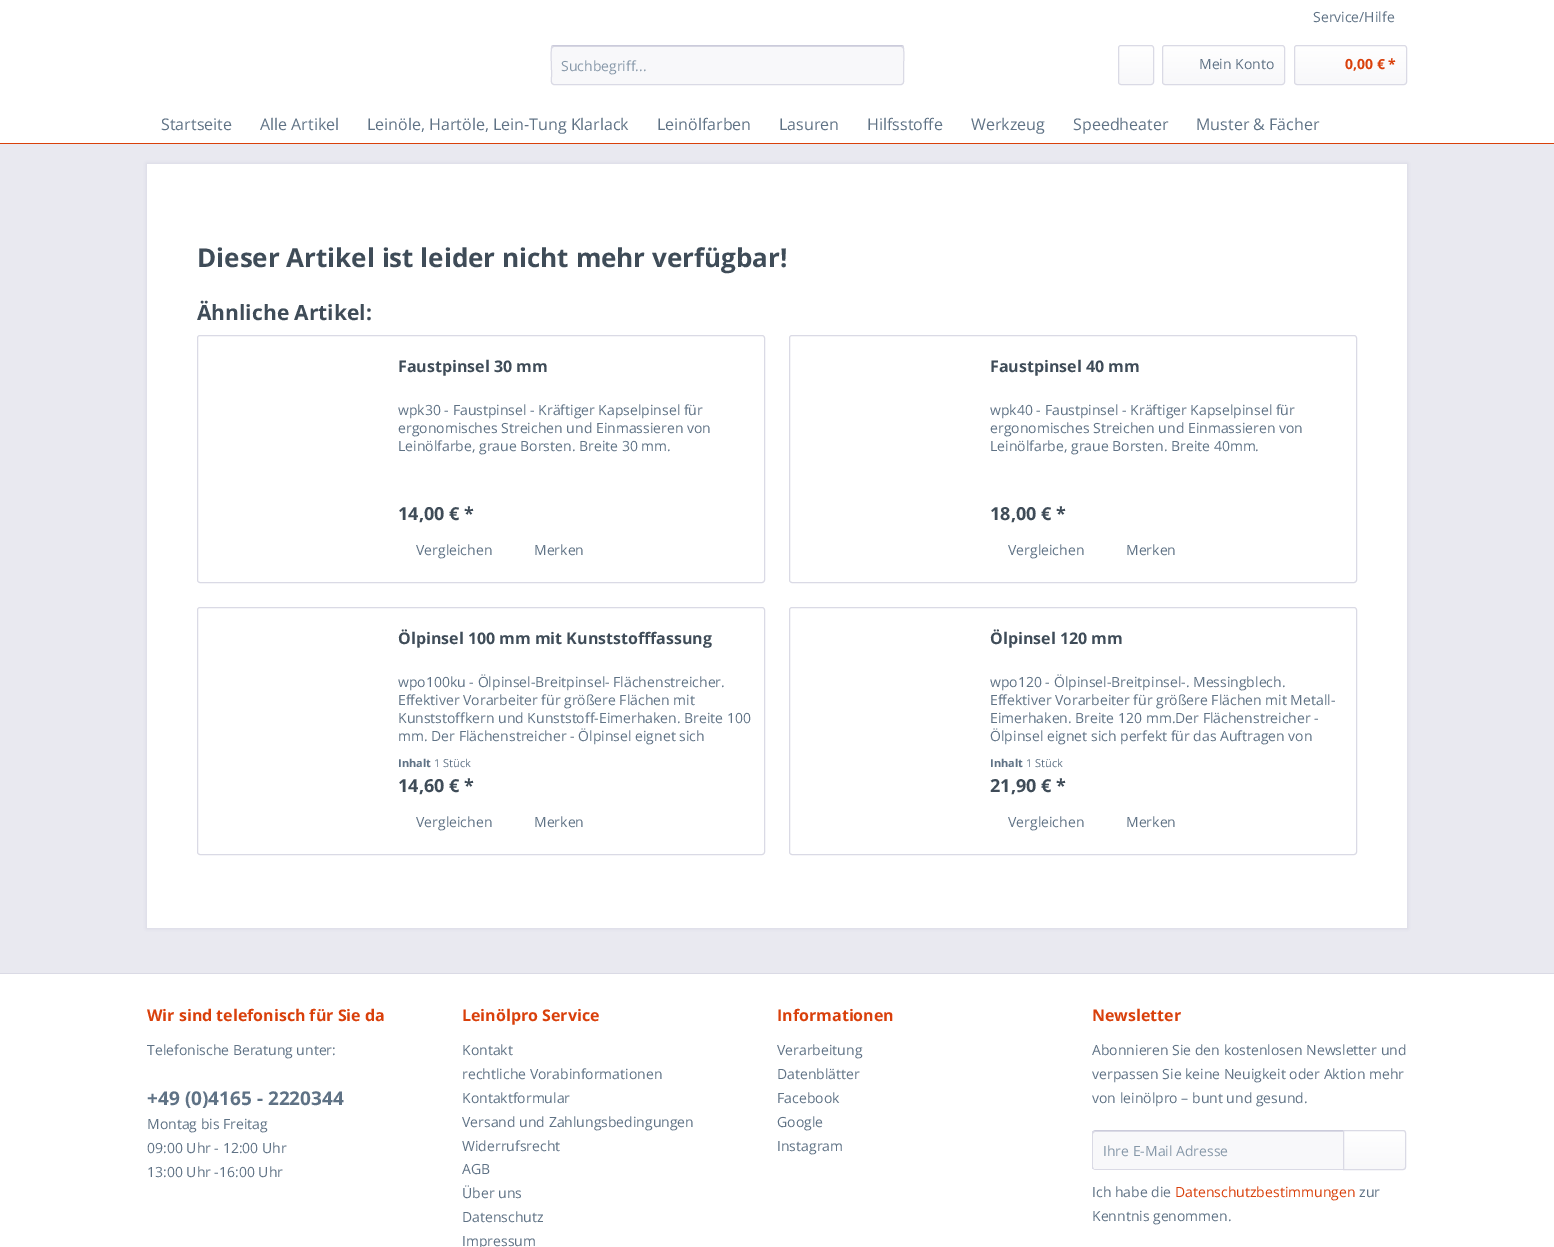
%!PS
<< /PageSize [1554 1247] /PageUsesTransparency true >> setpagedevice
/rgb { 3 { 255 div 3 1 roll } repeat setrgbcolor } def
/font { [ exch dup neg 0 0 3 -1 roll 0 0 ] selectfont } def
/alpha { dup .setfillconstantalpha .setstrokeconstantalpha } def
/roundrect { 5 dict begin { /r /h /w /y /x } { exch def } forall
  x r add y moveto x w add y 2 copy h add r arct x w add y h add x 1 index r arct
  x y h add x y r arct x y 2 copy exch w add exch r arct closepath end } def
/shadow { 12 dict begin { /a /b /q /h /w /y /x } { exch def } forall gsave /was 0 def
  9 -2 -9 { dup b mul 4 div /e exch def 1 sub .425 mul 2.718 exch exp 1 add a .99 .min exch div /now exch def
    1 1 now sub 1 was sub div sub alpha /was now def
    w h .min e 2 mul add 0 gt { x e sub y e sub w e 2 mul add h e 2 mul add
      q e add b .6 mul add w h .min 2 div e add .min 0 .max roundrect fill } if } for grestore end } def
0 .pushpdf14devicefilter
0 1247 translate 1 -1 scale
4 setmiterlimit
233 233 240 rgb
0 0 1554 1247 rectfill
255 255 255 rgb
0 0 1554 143 rectfill
248 248 250 rgb
551 45 353 40 3 roundrect fill
218 218 229 rgb
554 47 moveto 901 47 lineto 902 47 903 48 903 49 curveto 903 48 903 46 901 46 curveto 554 46 lineto 552 46 552 48 552 49 curveto 552 48 553 47 554 47 curveto closepath fill
203 203 219 rgb
552 46 moveto 554 45.5 lineto 901 45.5 lineto 903 46 lineto stroke
218 218 229 rgb
903 46 moveto 904.5 48 903.5 67 903.5 70.5 curveto 903.5 76.5 lineto 903.5 78 905 84.5 901 84.5 curveto 554 84.5 lineto 550 84.5 551.5 78 551.5 76.5 curveto 551.5 70.5 lineto 551.5 67 550.5 48 552 46 curveto stroke
gsave 1119 46 34 38 2 roundrect clip newpath
<< /ShadingType 2 /ColorSpace /DeviceRGB /Coords [1136 46 1136 84] /Extend [true true] /Function << /FunctionType 2 /Domain [0 1] /C0 [1 1 1] /C1 [0.973 0.973 0.98] /N 1 >> >> shfill grestore
1118.5 45.5 35 39 2.5 roundrect stroke
gsave 1163 46 121 38 2 roundrect clip newpath
<< /ShadingType 2 /ColorSpace /DeviceRGB /Coords [1224 46 1224 84] /Extend [true true] /Function << /FunctionType 2 /Domain [0 1] /C0 [1 1 1] /C1 [0.973 0.973 0.98] /N 1 >> >> shfill grestore
1162.5 45.5 122 39 2.5 roundrect stroke
gsave 1295 46 111 38 2 roundrect clip newpath
<< /ShadingType 2 /ColorSpace /DeviceRGB /Coords [1351 46 1351 84] /Extend [true true] /Function << /FunctionType 2 /Domain [0 1] /C0 [1 1 1] /C1 [0.973 0.973 0.98] /N 1 >> >> shfill grestore
1294.5 45.5 112 39 2.5 roundrect stroke
217 64 11 rgb
0 143 1554 1 rectfill
218 218 229 rgb
146 163 1262 766 0 2 1 shadow
255 255 255 rgb
147 164 1260 764 rectfill
218 218 229 rgb
197.5 335.5 567 247 2.5 roundrect stroke
789.5 335.5 567 247 2.5 roundrect stroke
197.5 607.5 567 247 2.5 roundrect stroke
789.5 607.5 567 247 2.5 roundrect stroke
255 255 255 rgb
0 974 1554 273 rectfill
218 218 229 rgb
0 973 1554 1 rectfill
248 248 250 rgb
1095 1131 moveto 1343 1131 lineto 1343 1169 lineto 1095 1169 lineto 1094 1169 1093 1168 1093 1167 curveto 1093 1133 lineto 1093 1132 1094 1131 1095 1131 curveto closepath fill
218 218 229 rgb
1095 1132 moveto 1343 1132 lineto 1343 1131 lineto 1095 1131 lineto 1093 1131 1093 1133 1093 1134 curveto 1093 1133 1094 1132 1095 1132 curveto closepath fill
203 203 219 rgb
1095 1130 moveto 1093 1131 lineto 1094 1132 lineto 1094 1131 lineto 1343 1131 lineto 1344 1130 lineto closepath fill
218 218 229 rgb
1344 1170 moveto 1343 1169 lineto 1094 1169 lineto 1094 1168 lineto 1093 1169 lineto 1095 1170 lineto closepath fill
1092 1133 moveto 1092 1167 lineto 1092 1168 1092 1169 1093 1169 curveto 1093.5 1168.5 lineto 1093 1167 lineto 1093 1133 lineto 1093.5 1131.5 lineto 1093 1131 lineto 1092 1131 1092 1132 1092 1133 curveto closepath fill
gsave 1344 1131 moveto 1403 1131 lineto 1404 1131 1405 1132 1405 1133 curveto 1405 1167 lineto 1405 1168 1404 1169 1403 1169 curveto 1344 1169 lineto closepath clip newpath
<< /ShadingType 2 /ColorSpace /DeviceRGB /Coords [1375 1131 1375 1169] /Extend [true true] /Function << /FunctionType 2 /Domain [0 1] /C0 [1 1 1] /C1 [0.973 0.973 0.98] /N 1 >> >> shfill grestore
1343.5 1130.5 moveto 1403 1130.5 lineto 1404.5 1130.5 1405.5 1131.5 1405.5 1133 curveto 1405.5 1167 lineto 1405.5 1168.5 1404.5 1169.5 1403 1169.5 curveto 1343.5 1169.5 lineto closepath stroke
/OpenSans-Regular 14 font
95 114 133 rgb
1313 22 moveto (Service/Hilfe) show
135 152 169 rgb
561 71 moveto (Suchbegriff...) show
95 114 133 rgb
1199 69 moveto (Mein Konto) show
/OpenSans-Bold 14 font
217 64 11 rgb
1345 69 moveto (0,00 € *) show
/OpenSans-Regular 16 font
95 114 133 rgb
[
  [(Startseite) 161 130]
  [(Alle Artikel) 260 130]
  [(Leinöle, Hartöle, Lein-Tung Klarlack) 367 130]
  [(Leinölfarben) 657 130]
  [(Lasuren) 779 130]
  [(Hilfsstoffe) 867 130]
  [(Werkzeug) 971 130]
  [(Speedheater) 1073 130]
  [(Muster & Fächer) 1196 130]
] { aload pop moveto show } forall
/OpenSans-Bold 26 font
63 76 88 rgb
197 267 moveto (Dieser Artikel ist leider nicht mehr verfügbar!) show
/OpenSans-Bold 21 font
197 320 moveto (Ähnliche Artikel:) show
/OpenSans-Bold 16 font
398 372 moveto (Faustpinsel 30 mm) show
/OpenSans-Regular 14 font
95 114 133 rgb
[
  [(wpk30 - Faustpinsel - Kräftiger Kapselpinsel für) 398 415]
  [(ergonomisches Streichen und Einmassieren von) 398 433]
  [(Leinölfarbe, graue Borsten. Breite 30 mm.) 398 451]
] { aload pop moveto show } forall
/OpenSans-Bold 18 font
63 76 88 rgb
398 520 moveto (14,00 € *) show
/OpenSans-Regular 14 font
95 114 133 rgb
416 555 moveto (Vergleichen) show
534 555 moveto (Merken) show
/OpenSans-Bold 16 font
63 76 88 rgb
990 372 moveto (Faustpinsel 40 mm) show
/OpenSans-Regular 14 font
95 114 133 rgb
[
  [(wpk40 - Faustpinsel - Kräftiger Kapselpinsel für) 990 415]
  [(ergonomisches Streichen und Einmassieren von) 990 433]
  [(Leinölfarbe, graue Borsten. Breite 40mm.) 990 451]
] { aload pop moveto show } forall
/OpenSans-Bold 18 font
63 76 88 rgb
990 520 moveto (18,00 € *) show
/OpenSans-Regular 14 font
95 114 133 rgb
1008 555 moveto (Vergleichen) show
1126 555 moveto (Merken) show
/OpenSans-Bold 16 font
63 76 88 rgb
398 644 moveto (Ölpinsel 100 mm mit Kunststofffassung) show
/OpenSans-Regular 14 font
95 114 133 rgb
[
  [(wpo100ku - Ölpinsel-Breitpinsel- Flächenstreicher.) 398 687]
  [(Effektiver Vorarbeiter für größere Flächen mit) 398 705]
  [(Kunststoffkern und Kunststoff-Eimerhaken. Breite 100) 398 723]
  [(mm. Der Flächenstreicher - Ölpinsel eignet sich) 398 741]
] { aload pop moveto show } forall
/OpenSans-Bold 11 font
398 767 moveto (Inhalt) show
/OpenSans-Regular 11 font
434 767 moveto (1 Stück) show
/OpenSans-Bold 18 font
63 76 88 rgb
398 792 moveto (14,60 € *) show
/OpenSans-Regular 14 font
95 114 133 rgb
416 827 moveto (Vergleichen) show
534 827 moveto (Merken) show
/OpenSans-Bold 16 font
63 76 88 rgb
990 644 moveto (Ölpinsel 120 mm) show
/OpenSans-Regular 14 font
95 114 133 rgb
[
  [(wpo120 - Ölpinsel-Breitpinsel-. Messingblech.) 990 687]
  [(Effektiver Vorarbeiter für größere Flächen mit Metall-) 990 705]
  [(Eimerhaken. Breite 120 mm.Der Flächenstreicher -) 990 723]
  [(Ölpinsel eignet sich perfekt für das Auftragen von) 990 741]
] { aload pop moveto show } forall
/OpenSans-Bold 11 font
990 767 moveto (Inhalt) show
/OpenSans-Regular 11 font
1026 767 moveto (1 Stück) show
/OpenSans-Bold 18 font
63 76 88 rgb
990 792 moveto (21,90 € *) show
/OpenSans-Regular 14 font
95 114 133 rgb
1008 827 moveto (Vergleichen) show
1126 827 moveto (Merken) show
/OpenSans-Bold 16 font
217 64 11 rgb
147 1021 moveto (Wir sind telefonisch für Sie da) show
/OpenSans-Regular 14 font
95 114 133 rgb
147 1055 moveto (Telefonische Beratung unter:) show
/OpenSans-Bold 19 font
147 1105 moveto (+49 \(0\)4165 - 2220344) show
/OpenSans-Regular 14 font
[
  [(Montag bis Freitag) 147 1129]
  [(09:00 Uhr - 12:00 Uhr) 147 1153]
  [(13:00 Uhr -16:00 Uhr) 147 1177]
] { aload pop moveto show } forall
/OpenSans-Bold 16 font
217 64 11 rgb
462 1021 moveto (Leinölpro Service) show
/OpenSans-Regular 14 font
95 114 133 rgb
[
  [(Kontakt) 462 1055]
  [(rechtliche Vorabinformationen) 462 1079]
  [(Kontaktformular) 462 1103]
  [(Versand und Zahlungsbedingungen) 462 1127]
  [(Widerrufsrecht) 462 1151]
  [(AGB) 462 1174]
  [(Über uns) 462 1198]
  [(Datenschutz) 462 1222]
  [(Impressum) 462 1246]
] { aload pop moveto show } forall
/OpenSans-Bold 16 font
217 64 11 rgb
777 1021 moveto (Informationen) show
/OpenSans-Regular 14 font
95 114 133 rgb
[
  [(Verarbeitung) 777 1055]
  [(Datenblätter) 777 1079]
  [(Facebook) 777 1103]
  [(Google) 777 1127]
  [(Instagram) 777 1151]
] { aload pop moveto show } forall
/OpenSans-Bold 16 font
217 64 11 rgb
1092 1021 moveto (Newsletter) show
/OpenSans-Regular 14 font
95 114 133 rgb
[
  [(Abonnieren Sie den kostenlosen Newsletter und) 1092 1055]
  [(verpassen Sie keine Neuigkeit oder Aktion mehr) 1092 1079]
  [(von leinölpro – bunt und gesund.) 1092 1103]
] { aload pop moveto show } forall
135 152 169 rgb
1103 1156 moveto (Ihre E-Mail Adresse) show
95 114 133 rgb
1092 1197 moveto (Ich habe die) show
217 64 11 rgb
1175 1197 moveto (Datenschutzbestimmungen) show
95 114 133 rgb
1359 1197 moveto (zur) show
1092 1221 moveto (Kenntnis genommen.) show
.poppdf14devicefilter showpage
